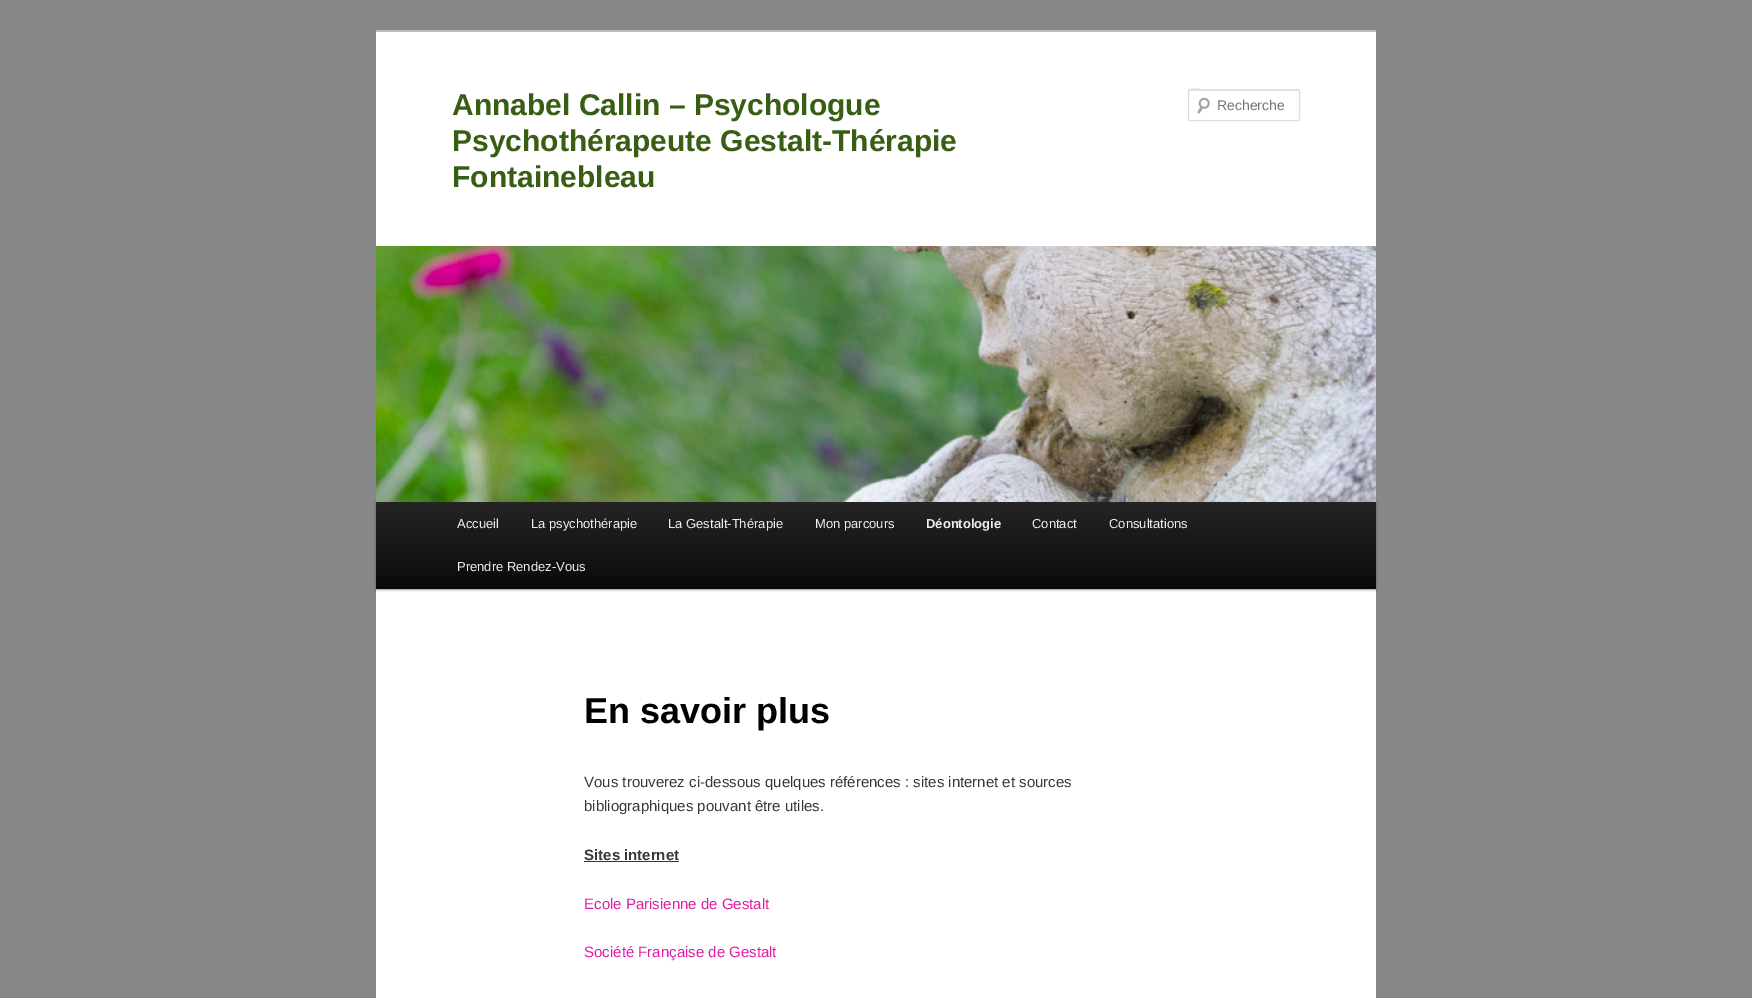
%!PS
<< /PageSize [1752 998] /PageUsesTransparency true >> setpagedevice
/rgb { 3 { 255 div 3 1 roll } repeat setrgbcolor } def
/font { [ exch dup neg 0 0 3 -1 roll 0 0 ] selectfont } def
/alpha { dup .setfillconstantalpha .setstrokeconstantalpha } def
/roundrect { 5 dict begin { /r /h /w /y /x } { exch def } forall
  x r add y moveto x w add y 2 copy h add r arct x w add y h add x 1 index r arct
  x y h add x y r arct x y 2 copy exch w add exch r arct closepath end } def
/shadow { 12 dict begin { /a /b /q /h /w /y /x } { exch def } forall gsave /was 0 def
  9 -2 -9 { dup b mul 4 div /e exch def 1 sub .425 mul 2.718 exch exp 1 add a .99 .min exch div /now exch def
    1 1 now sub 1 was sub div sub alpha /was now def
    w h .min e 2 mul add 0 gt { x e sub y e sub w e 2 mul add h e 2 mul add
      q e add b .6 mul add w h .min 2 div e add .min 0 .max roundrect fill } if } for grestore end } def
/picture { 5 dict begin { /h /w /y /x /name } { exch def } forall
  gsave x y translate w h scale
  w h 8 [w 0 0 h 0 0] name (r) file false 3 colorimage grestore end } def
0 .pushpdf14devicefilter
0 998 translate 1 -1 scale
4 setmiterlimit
135 135 135 rgb
0 0 1752 998 rectfill
255 255 255 rgb
376 32 1000 966 rectfill
187 187 187 rgb
376 30 1000 2 rectfill
(img/1.rgb) 1197 97 13 17 picture
230 230 230 rgb
1190 91 moveto 1299 91 lineto 1299 92 lineto 1298 90 lineto 1208 90 lineto 1204 90 1189 85 1189 92 curveto 1189 91 1189 91 1190 91 curveto closepath fill
221 221 221 rgb
1188.5 89.5 111 31 1.5 roundrect stroke
0 0 0 rgb
376 503 1000 87 0 1 0.4 shadow
(img/2.rgb) 376 246 1000 256 picture
gsave 376 502 moveto 1376 502 lineto 1376 589 lineto 376 589 lineto closepath clip newpath
<< /ShadingType 2 /ColorSpace /DeviceRGB /Coords [876 502 876 589] /Extend [true true] /Function << /FunctionType 2 /Domain [0 1] /C0 [0.145 0.145 0.145] /C1 [0.039 0.039 0.039] /N 1 >> >> shfill grestore
55 55 55 rgb
584 861 95 1 rectfill
/LiberationSans-Bold 30 font
55 94 18 rgb
[
  [(Annabel Callin – Psychologue) 452 115]
  [(Psychothérapeute Gestalt-Thérapie) 452 151]
  [(Fontainebleau) 452 187]
] { aload pop moveto show } forall
/LiberationSans-Regular 14 font
117 117 117 rgb
1217 110 moveto (Recherche) show
/LiberationSans-Regular 13 font
238 238 238 rgb
[
  [(Accueil) 457 528]
  [(La psychothérapie) 531 528]
  [(La Gestalt-Thérapie) 668 528]
  [(Mon parcours) 815 528]
] { aload pop moveto show } forall
/LiberationSans-Bold 13 font
926 528 moveto (Déontologie) show
/LiberationSans-Regular 13 font
[
  [(Contact) 1032 528]
  [(Consultations) 1109 528]
  [(Prendre Rendez-Vous) 457 571]
] { aload pop moveto show } forall
/LiberationSans-Bold 36 font
0 0 0 rgb
584 723 moveto (En savoir plus) show
/LiberationSans-Regular 15 font
55 55 55 rgb
584 787 moveto (Vous trouverez ci-dessous quelques références : sites internet et sources) show
584 811 moveto (bibliographiques pouvant être utiles.) show
/LiberationSans-Bold 15 font
584 860 moveto (Sites internet) show
/LiberationSans-Regular 15 font
224 27 165 rgb
584 909 moveto (Ecole Parisienne de Gestalt) show
584 957 moveto (Société Française de Gestalt) show
.poppdf14devicefilter showpage
